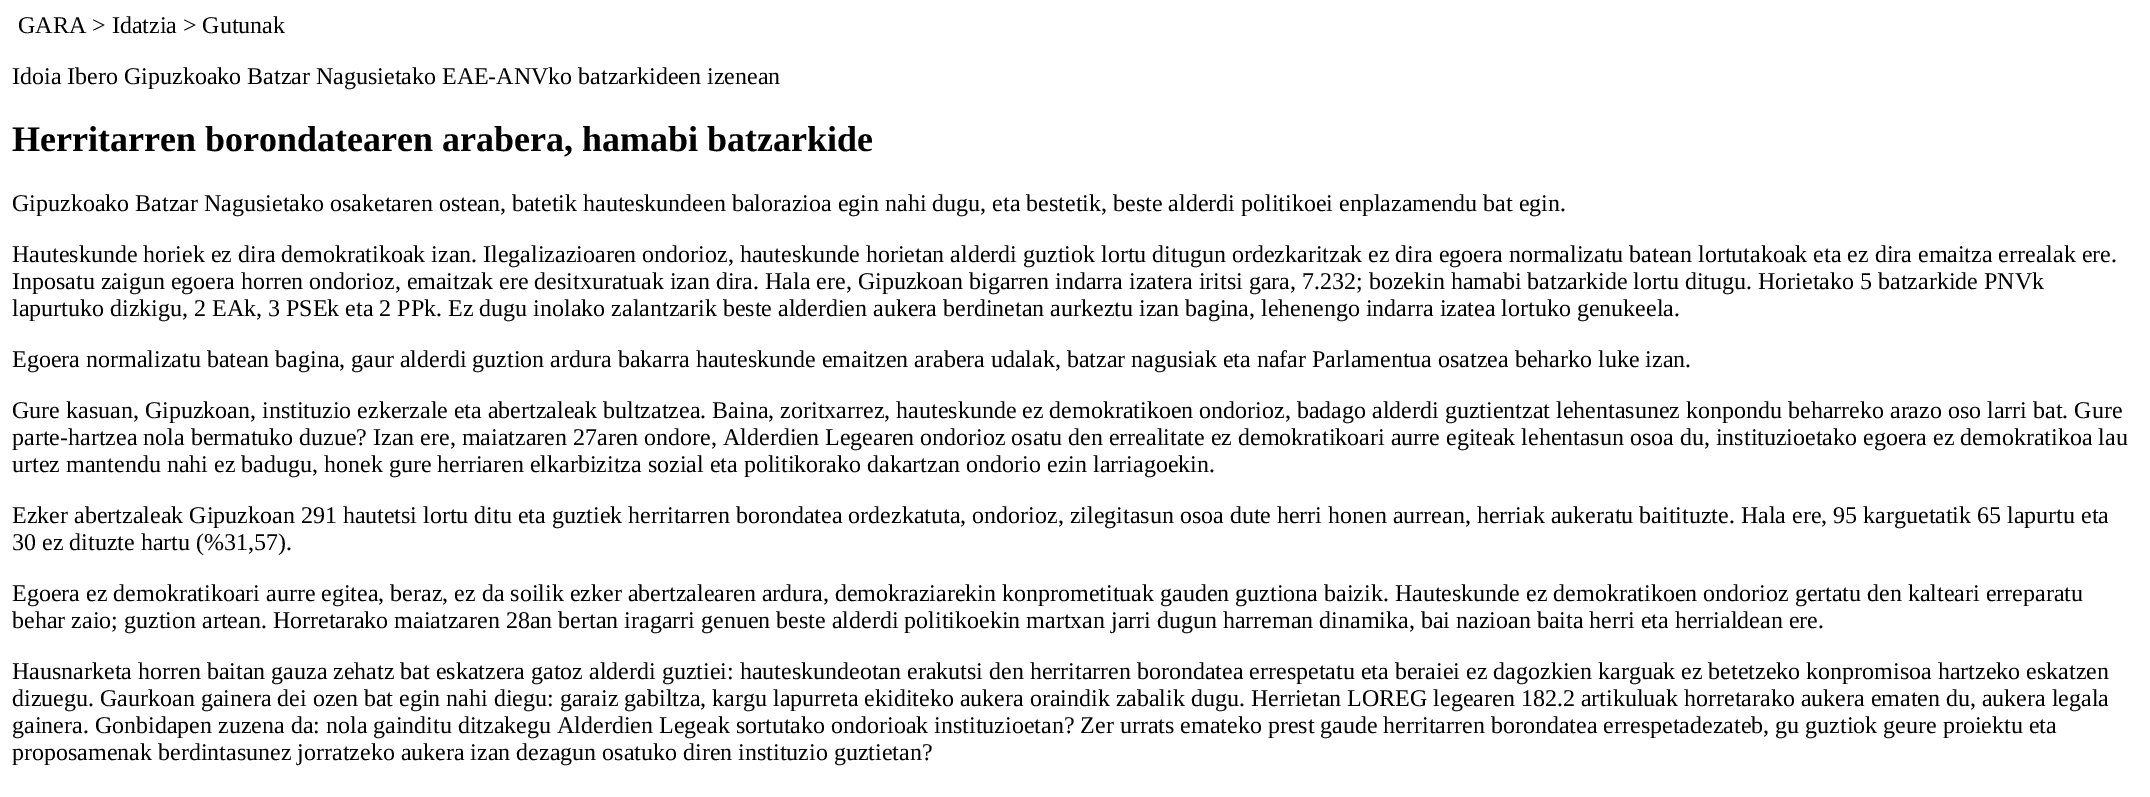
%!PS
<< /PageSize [2150 797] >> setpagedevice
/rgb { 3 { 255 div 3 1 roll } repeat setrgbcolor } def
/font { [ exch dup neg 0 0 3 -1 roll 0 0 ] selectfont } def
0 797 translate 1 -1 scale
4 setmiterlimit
255 255 255 rgb
0 0 2150 797 rectfill
/LiberationSerif-Regular 24 font
0 0 0 rgb
18 33 moveto (GARA > Idatzia > Gutunak) show
12 84 moveto (Idoia Ibero Gipuzkoako Batzar Nagusietako EAE-ANVko batzarkideen izenean) show
/LiberationSerif-Bold 36 font
12 151 moveto (Herritarren borondatearen arabera, hamabi batzarkide) show
/LiberationSerif-Regular 24 font
[
  [(Gipuzkoako Batzar Nagusietako osaketaren ostean, batetik hauteskundeen balorazioa egin nahi dugu, eta bestetik, beste alderdi politikoei enplazamendu bat egin.) 12 211]
  [(Hauteskunde horiek ez dira demokratikoak izan. Ilegalizazioaren ondorioz, hauteskunde horietan alderdi guztiok lortu ditugun ordezkaritzak ez dira egoera normalizatu batean lortutakoak eta ez dira emaitza errealak ere.) 12 262]
  [(Inposatu zaigun egoera horren ondorioz, emaitzak ere desitxuratuak izan dira. Hala ere, Gipuzkoan bigarren indarra izatera iritsi gara, 7.232; bozekin hamabi batzarkide lortu ditugu. Horietako 5 batzarkide PNVk) 12 289]
  [(lapurtuko dizkigu, 2 EAk, 3 PSEk eta 2 PPk. Ez dugu inolako zalantzarik beste alderdien aukera berdinetan aurkeztu izan bagina, lehenengo indarra izatea lortuko genukeela.) 12 316]
  [(Egoera normalizatu batean bagina, gaur alderdi guztion ardura bakarra hauteskunde emaitzen arabera udalak, batzar nagusiak eta nafar Parlamentua osatzea beharko luke izan.) 12 367]
  [(Gure kasuan, Gipuzkoan, instituzio ezkerzale eta abertzaleak bultzatzea. Baina, zoritxarrez, hauteskunde ez demokratikoen ondorioz, badago alderdi guztientzat lehentasunez konpondu beharreko arazo oso larri bat. Gure) 12 418]
  [(parte-hartzea nola bermatuko duzue? Izan ere, maiatzaren 27aren ondore, Alderdien Legearen ondorioz osatu den errealitate ez demokratikoari aurre egiteak lehentasun osoa du, instituzioetako egoera ez demokratikoa lau) 12 445]
  [(urtez mantendu nahi ez badugu, honek gure herriaren elkarbizitza sozial eta politikorako dakartzan ondorio ezin larriagoekin.) 12 472]
  [(Ezker abertzaleak Gipuzkoan 291 hautetsi lortu ditu eta guztiek herritarren borondatea ordezkatuta, ondorioz, zilegitasun osoa dute herri honen aurrean, herriak aukeratu baitituzte. Hala ere, 95 karguetatik 65 lapurtu eta) 12 523]
  [(30 ez dituzte hartu \(%31,57\).) 12 550]
  [(Egoera ez demokratikoari aurre egitea, beraz, ez da soilik ezker abertzalearen ardura, demokraziarekin konprometituak gauden guztiona baizik. Hauteskunde ez demokratikoen ondorioz gertatu den kalteari erreparatu) 12 601]
  [(behar zaio; guztion artean. Horretarako maiatzaren 28an bertan iragarri genuen beste alderdi politikoekin martxan jarri dugun harreman dinamika, bai nazioan baita herri eta herrialdean ere.) 12 628]
  [(Hausnarketa horren baitan gauza zehatz bat eskatzera gatoz alderdi guztiei: hauteskundeotan erakutsi den herritarren borondatea errespetatu eta beraiei ez dagozkien karguak ez betetzeko konpromisoa hartzeko eskatzen) 12 679]
  [(dizuegu. Gaurkoan gainera dei ozen bat egin nahi diegu: garaiz gabiltza, kargu lapurreta ekiditeko aukera oraindik zabalik dugu. Herrietan LOREG legearen 182.2 artikuluak horretarako aukera ematen du, aukera legala) 12 706]
  [(gainera. Gonbidapen zuzena da: nola gainditu ditzakegu Alderdien Legeak sortutako ondorioak instituzioetan? Zer urrats emateko prest gaude herritarren borondatea errespetadezateb, gu guztiok geure proiektu eta) 12 733]
  [(proposamenak berdintasunez jorratzeko aukera izan dezagun osatuko diren instituzio guztietan?) 12 760]
] { aload pop moveto show } forall
showpage
